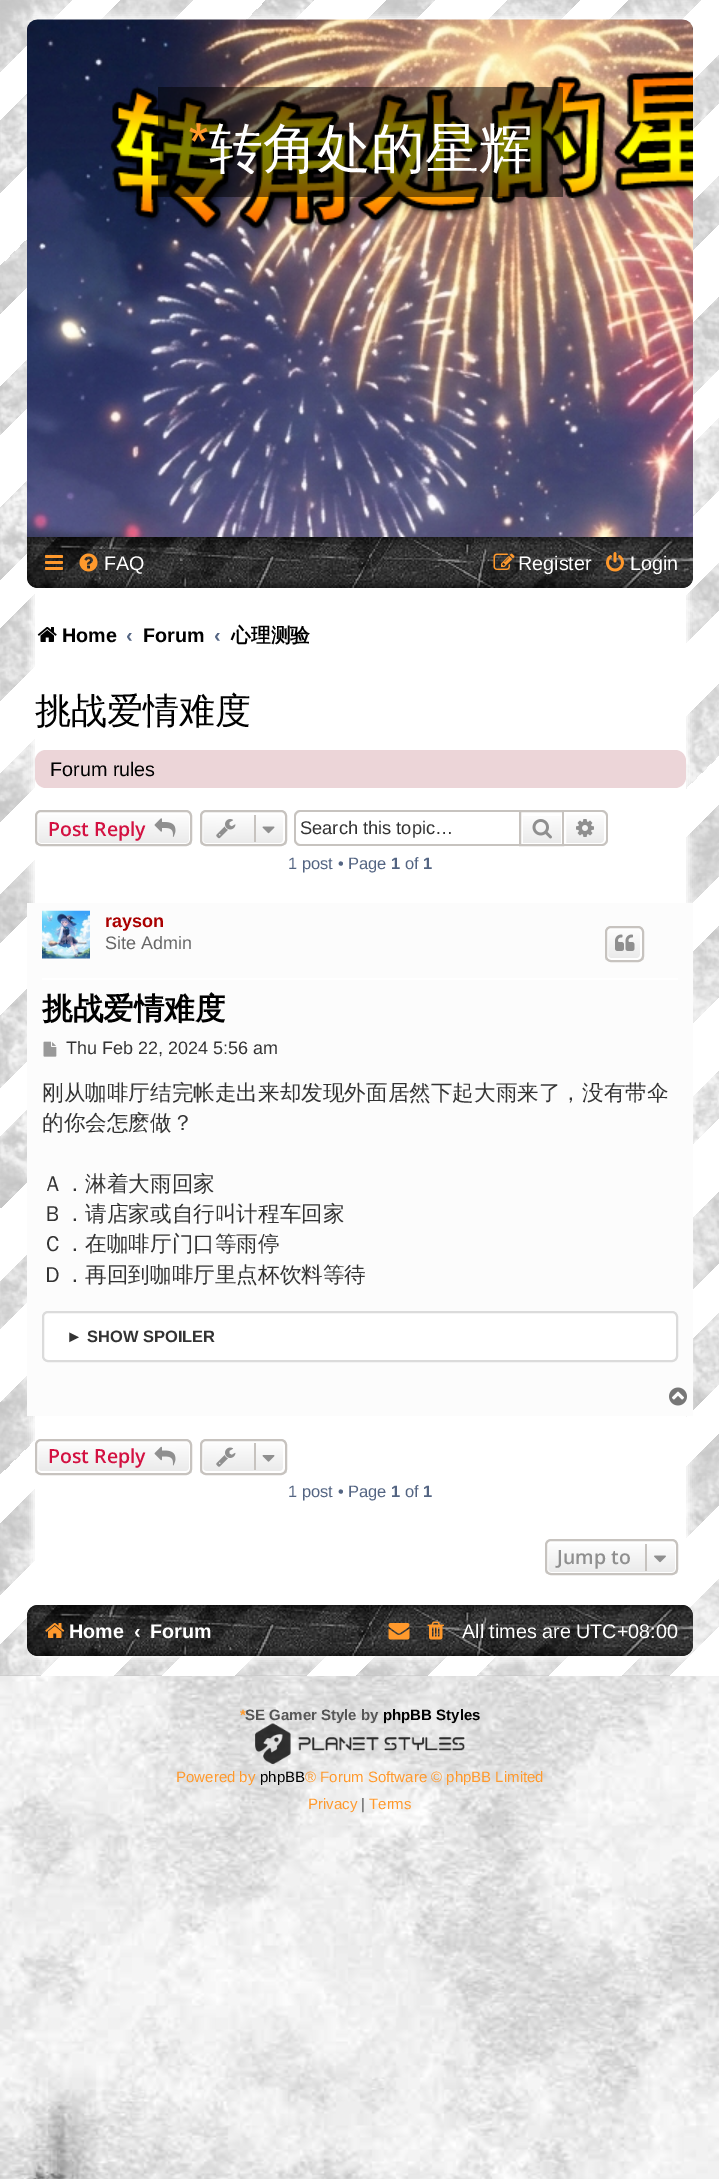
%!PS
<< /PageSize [719 2179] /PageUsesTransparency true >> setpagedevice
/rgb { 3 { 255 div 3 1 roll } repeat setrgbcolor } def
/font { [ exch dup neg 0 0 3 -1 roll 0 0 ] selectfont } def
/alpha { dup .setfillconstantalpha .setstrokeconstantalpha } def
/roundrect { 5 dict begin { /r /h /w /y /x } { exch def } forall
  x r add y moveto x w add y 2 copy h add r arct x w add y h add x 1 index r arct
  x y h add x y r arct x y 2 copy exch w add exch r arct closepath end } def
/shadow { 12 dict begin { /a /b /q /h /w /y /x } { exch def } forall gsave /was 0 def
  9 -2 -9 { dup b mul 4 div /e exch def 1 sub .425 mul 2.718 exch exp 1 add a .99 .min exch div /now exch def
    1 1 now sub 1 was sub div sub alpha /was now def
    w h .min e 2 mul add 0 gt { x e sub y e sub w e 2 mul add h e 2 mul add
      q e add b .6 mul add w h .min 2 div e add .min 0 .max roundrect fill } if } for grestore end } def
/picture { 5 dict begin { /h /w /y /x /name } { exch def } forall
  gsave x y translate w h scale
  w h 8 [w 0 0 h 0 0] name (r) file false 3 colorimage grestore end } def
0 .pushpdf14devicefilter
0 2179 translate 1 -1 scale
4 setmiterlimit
255 255 255 rgb
0 0 719 2179 rectfill
(img/1.rgb) 0 1833 719 346 picture
(img/2.rgb) 0 1676 719 157 picture
gsave 0 0 moveto 719 0 lineto 719 1676 lineto 0 1676 lineto closepath clip newpath
<< /ShadingType 2 /ColorSpace /DeviceRGB /Coords [-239 239 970 1448] /Extend [true true] /Function << /FunctionType 3 /Domain [0 1] /Functions [<< /FunctionType 2 /Domain [0 1] /C0 [0.773 0.773 0.773] /C1 [0.773 0.773 0.773] /N 1 >> << /FunctionType 2 /Domain [0 1] /C0 [1 1 1] /C1 [1 1 1] /N 1 >> << /FunctionType 2 /Domain [0 1] /C0 [0.773 0.773 0.773] /C1 [0.773 0.773 0.773] /N 1 >> << /FunctionType 2 /Domain [0 1] /C0 [1 1 1] /C1 [1 1 1] /N 1 >> << /FunctionType 2 /Domain [0 1] /C0 [0.773 0.773 0.773] /C1 [0.773 0.773 0.773] /N 1 >> << /FunctionType 2 /Domain [0 1] /C0 [1 1 1] /C1 [1 1 1] /N 1 >> << /FunctionType 2 /Domain [0 1] /C0 [0.773 0.773 0.773] /C1 [0.773 0.773 0.773] /N 1 >> << /FunctionType 2 /Domain [0 1] /C0 [1 1 1] /C1 [1 1 1] /N 1 >> << /FunctionType 2 /Domain [0 1] /C0 [0.773 0.773 0.773] /C1 [0.773 0.773 0.773] /N 1 >> << /FunctionType 2 /Domain [0 1] /C0 [1 1 1] /C1 [1 1 1] /N 1 >> << /FunctionType 2 /Domain [0 1] /C0 [0.773 0.773 0.773] /C1 [0.773 0.773 0.773] /N 1 >> << /FunctionType 2 /Domain [0 1] /C0 [1 1 1] /C1 [1 1 1] /N 1 >> << /FunctionType 2 /Domain [0 1] /C0 [0.773 0.773 0.773] /C1 [0.773 0.773 0.773] /N 1 >> << /FunctionType 2 /Domain [0 1] /C0 [1 1 1] /C1 [1 1 1] /N 1 >> << /FunctionType 2 /Domain [0 1] /C0 [0.773 0.773 0.773] /C1 [0.773 0.773 0.773] /N 1 >> << /FunctionType 2 /Domain [0 1] /C0 [1 1 1] /C1 [1 1 1] /N 1 >> << /FunctionType 2 /Domain [0 1] /C0 [0.773 0.773 0.773] /C1 [0.773 0.773 0.773] /N 1 >> << /FunctionType 2 /Domain [0 1] /C0 [1 1 1] /C1 [1 1 1] /N 1 >> << /FunctionType 2 /Domain [0 1] /C0 [0.773 0.773 0.773] /C1 [0.773 0.773 0.773] /N 1 >> << /FunctionType 2 /Domain [0 1] /C0 [1 1 1] /C1 [1 1 1] /N 1 >> << /FunctionType 2 /Domain [0 1] /C0 [0.773 0.773 0.773] /C1 [0.773 0.773 0.773] /N 1 >> << /FunctionType 2 /Domain [0 1] /C0 [1 1 1] /C1 [1 1 1] /N 1 >> << /FunctionType 2 /Domain [0 1] /C0 [0.773 0.773 0.773] /C1 [0.773 0.773 0.773] /N 1 >> << /FunctionType 2 /Domain [0 1] /C0 [1 1 1] /C1 [1 1 1] /N 1 >> << /FunctionType 2 /Domain [0 1] /C0 [0.773 0.773 0.773] /C1 [0.773 0.773 0.773] /N 1 >> << /FunctionType 2 /Domain [0 1] /C0 [1 1 1] /C1 [1 1 1] /N 1 >> << /FunctionType 2 /Domain [0 1] /C0 [0.773 0.773 0.773] /C1 [0.773 0.773 0.773] /N 1 >> << /FunctionType 2 /Domain [0 1] /C0 [1 1 1] /C1 [1 1 1] /N 1 >> << /FunctionType 2 /Domain [0 1] /C0 [0.773 0.773 0.773] /C1 [0.773 0.773 0.773] /N 1 >> << /FunctionType 2 /Domain [0 1] /C0 [1 1 1] /C1 [1 1 1] /N 1 >> << /FunctionType 2 /Domain [0 1] /C0 [0.773 0.773 0.773] /C1 [0.773 0.773 0.773] /N 1 >> << /FunctionType 2 /Domain [0 1] /C0 [1 1 1] /C1 [1 1 1] /N 1 >> << /FunctionType 2 /Domain [0 1] /C0 [0.773 0.773 0.773] /C1 [0.773 0.773 0.773] /N 1 >> << /FunctionType 2 /Domain [0 1] /C0 [1 1 1] /C1 [1 1 1] /N 1 >> << /FunctionType 2 /Domain [0 1] /C0 [0.773 0.773 0.773] /C1 [0.773 0.773 0.773] /N 1 >> << /FunctionType 2 /Domain [0 1] /C0 [1 1 1] /C1 [1 1 1] /N 1 >> << /FunctionType 2 /Domain [0 1] /C0 [0.773 0.773 0.773] /C1 [0.773 0.773 0.773] /N 1 >> << /FunctionType 2 /Domain [0 1] /C0 [1 1 1] /C1 [1 1 1] /N 1 >>] /Bounds [0.03 0.05 0.08 0.11 0.13 0.16 0.18 0.21 0.24 0.26 0.29 0.32 0.34 0.37 0.39 0.42 0.45 0.47 0.5 0.53 0.55 0.58 0.61 0.63 0.66 0.68 0.71 0.74 0.76 0.79 0.82 0.84 0.87 0.89 0.92 0.95 0.97] /Encode [0 1 0 1 0 1 0 1 0 1 0 1 0 1 0 1 0 1 0 1 0 1 0 1 0 1 0 1 0 1 0 1 0 1 0 1 0 1 0 1 0 1 0 1 0 1 0 1 0 1 0 1 0 1 0 1 0 1 0 1 0 1 0 1 0 1 0 1 0 1 0 1 0 1 0 1] >> >> shfill grestore
(img/3.rgb) 0 0 719 1676 picture
32 17 657 1642 0 4 1 shadow
35 20 651 1636 rectfill
(img/4.rgb) 27 19 666 518 picture
0.5 alpha
0 0 0 rgb
158 87 405 110 rectfill
1 alpha
27 537 moveto 693 537 lineto 693 577 lineto 693 583 688 588 682 588 curveto 38 588 lineto 32 588 27 583 27 577 curveto closepath fill
(img/5.rgb) 27 537 666 51 picture
(img/6.rgb) 45 555 18 15 picture
(img/7.rgb) 79 553 19 19 picture
(img/8.rgb) 493 553 22 17 picture
(img/9.rgb) 606 552 18 20 picture
(img/10.rgb) 37 627 20 15 picture
236 213 216 rgb
35 750 651 38 11 roundrect fill
gsave
35 810 157 36 6 roundrect clip newpath
gsave 35 812 moveto 192 812 lineto 192 845 lineto 35 845 lineto closepath clip newpath
<< /ShadingType 2 /ColorSpace /DeviceRGB /Coords [113 812 113 845] /Extend [true true] /Function << /FunctionType 2 /Domain [0 1] /C0 [1 1 1] /C1 [0.914 0.914 0.914] /N 1 >> >> shfill grestore
grestore
255 255 255 rgb
2 setlinewidth
37 813 153 31 4 roundrect stroke
199 195 191 rgb
36 811 155 34 5 roundrect stroke
(img/11.rgb) 154 818 22 19 picture
gsave
200 810 87 36 6 roundrect clip newpath
gsave 200 812 moveto 287 812 lineto 287 845 lineto 200 845 lineto closepath clip newpath
<< /ShadingType 2 /ColorSpace /DeviceRGB /Coords [243 812 243 845] /Extend [true true] /Function << /FunctionType 2 /Domain [0 1] /C0 [1 1 1] /C1 [0.914 0.914 0.914] /N 1 >> >> shfill grestore
grestore
255 255 255 rgb
202 813 82 31 4 roundrect stroke
199 195 191 rgb
201 811 85 34 5 roundrect stroke
(img/12.rgb) 216 819 20 20 picture
254 815 2 27 rectfill
(img/13.rgb) 262 826 13 8 picture
300 810 moveto 519 810 lineto 519 846 lineto 300 846 lineto 297 846 294 843 294 840 curveto 294 816 lineto 294 813 297 810 300 810 curveto closepath 300 812 moveto 519 812 lineto 519 844 lineto 300 844 lineto 298 844 296 842 296 840 curveto 296 816 lineto 296 814 298 812 300 812 curveto closepath eofill
gsave 523 816 moveto 561 816 lineto 561 843 lineto 523 843 lineto closepath clip newpath
<< /ShadingType 2 /ColorSpace /DeviceRGB /Coords [542 812 542 845] /Extend [true true] /Function << /FunctionType 2 /Domain [0 1] /C0 [1 1 1] /C1 [0.914 0.914 0.914] /N 1 >> >> shfill grestore
520 811 43 34 rectstroke
(img/14.rgb) 532 819 20 20 picture
gsave 565 813 moveto 601 813 lineto 603 813 605 815 605 817 curveto 605 840 lineto 605 842 603 844 601 844 curveto 565 844 lineto closepath clip newpath
<< /ShadingType 2 /ColorSpace /DeviceRGB /Coords [585 812 585 845] /Extend [true true] /Function << /FunctionType 2 /Domain [0 1] /C0 [1 1 1] /C1 [0.914 0.914 0.914] /N 1 >> >> shfill grestore
255 255 255 rgb
565 813 moveto 601 813 lineto 603 813 605 815 605 817 curveto 605 840 lineto 605 842 603 844 601 844 curveto 565 844 lineto closepath stroke
199 195 191 rgb
564 810 moveto 602 810 lineto 605 810 608 813 608 816 curveto 608 840 lineto 608 843 605 846 602 846 curveto 564 846 lineto closepath 564 812 moveto 602 812 lineto 604 812 606 814 606 816 curveto 606 840 lineto 606 842 604 844 602 844 curveto 564 844 lineto closepath eofill
(img/15.rgb) 576 819 18 18 picture
252 252 252 rgb
27 903 666 513 rectfill
255 255 255 rgb
42 978 636 2 rectfill
(img/16.rgb) 42 910 48 49 picture
gsave
605 926 39 36 6 roundrect clip newpath
gsave 605 927 moveto 644 927 lineto 644 960 lineto 605 960 lineto closepath clip newpath
<< /ShadingType 2 /ColorSpace /DeviceRGB /Coords [624 927 624 960] /Extend [true true] /Function << /FunctionType 2 /Domain [0 1] /C0 [1 1 1] /C1 [0.914 0.914 0.914] /N 1 >> >> shfill grestore
grestore
607 928 34 31 4 roundrect stroke
199 195 191 rgb
606 927 37 34 5 roundrect stroke
(img/17.rgb) 615 934 20 17 picture
(img/18.rgb) 43 1041 14 16 picture
255 255 255 rgb
43 1312 634 49 5 roundrect gsave fill grestore
219 219 219 rgb
stroke
(img/19.rgb) 669 1387 18 19 picture
gsave
35 1439 157 36 6 roundrect clip newpath
gsave 35 1440 moveto 192 1440 lineto 192 1473 lineto 35 1473 lineto closepath clip newpath
<< /ShadingType 2 /ColorSpace /DeviceRGB /Coords [113 1440 113 1473] /Extend [true true] /Function << /FunctionType 2 /Domain [0 1] /C0 [1 1 1] /C1 [0.914 0.914 0.914] /N 1 >> >> shfill grestore
grestore
255 255 255 rgb
37 1441 153 31 4 roundrect stroke
199 195 191 rgb
36 1440 155 34 5 roundrect stroke
(img/20.rgb) 154 1446 22 20 picture
gsave
200 1439 87 36 6 roundrect clip newpath
gsave 200 1440 moveto 287 1440 lineto 287 1473 lineto 200 1473 lineto closepath clip newpath
<< /ShadingType 2 /ColorSpace /DeviceRGB /Coords [243 1440 243 1473] /Extend [true true] /Function << /FunctionType 2 /Domain [0 1] /C0 [1 1 1] /C1 [0.914 0.914 0.914] /N 1 >> >> shfill grestore
grestore
255 255 255 rgb
202 1441 82 31 4 roundrect stroke
199 195 191 rgb
201 1440 85 34 5 roundrect stroke
(img/21.rgb) 216 1447 20 20 picture
254 1443 2 27 rectfill
(img/22.rgb) 262 1455 13 7 picture
gsave
545 1539 133 36 6 roundrect clip newpath
gsave 545 1541 moveto 678 1541 lineto 678 1574 lineto 545 1574 lineto closepath clip newpath
<< /ShadingType 2 /ColorSpace /DeviceRGB /Coords [611 1541 611 1574] /Extend [true true] /Function << /FunctionType 2 /Domain [0 1] /C0 [1 1 1] /C1 [0.914 0.914 0.914] /N 1 >> >> shfill grestore
grestore
255 255 255 rgb
547 1542 129 31 4 roundrect stroke
199 195 191 rgb
546 1540 131 34 5 roundrect stroke
645 1544 2 27 rectfill
(img/23.rgb) 654 1555 12 8 picture
0 0 0 rgb
27 1605 666 51 11 roundrect fill
(img/24.rgb) 26 1605 668 51 picture
(img/25.rgb) 45 1623 20 15 picture
(img/26.rgb) 388 1623 22 17 picture
(img/27.rgb) 427 1621 17 19 picture
/Oswald-Regular 54 font
255 153 44 rgb
187 167 moveto (*) show
gsave
188 110 345 64 rectclip
/WenQuanYiZenHei-Medium 54 font
255 255 255 rgb
209 167 moveto (转角处的星辉) show
grestore
/LiberationSans-Regular 19.75 font
255 255 255 rgb
[
  [(FAQ) 104 570]
  [(Register) 518 570]
  [(Login) 630 570]
] { aload pop moveto show } forall
/LiberationSans-Bold 19.75 font
0 0 0 rgb
62 642 moveto (Home) show
83 100 130 rgb
126 642 moveto (‹) show
0 0 0 rgb
143 642 moveto (Forum) show
83 100 130 rgb
214 642 moveto (‹) show
/WenQuanYiZenHei-Bold 19.75 font
0 0 0 rgb
231 642 moveto (心理测验) show
/WenQuanYiZenHei-Medium 36 font
35 723 moveto (挑战爱情难度) show
/LiberationSans-Regular 19.75 font
50 776 moveto (Forum rules) show
/OpenSans-SemiBold 19.5 font
211 17 65 rgb
48 836 moveto (Post Reply) show
/LiberationSans-Regular 18.25 font
51 51 51 rgb
300 834 moveto (Search this topic…) show
/LiberationSans-Regular 16.5 font
83 100 130 rgb
288 869 moveto (1 post • Page) show
/LiberationSans-Bold 16.5 font
391 869 moveto (1) show
/LiberationSans-Regular 16.5 font
405 869 moveto (of) show
/LiberationSans-Bold 16.5 font
423 869 moveto (1) show
/LiberationSans-Bold 18 font
170 0 0 rgb
105 927 moveto (rayson) show
/LiberationSans-Regular 18 font
102 102 102 rgb
105 949 moveto (Site Admin) show
/WenQuanYiZenHei-Bold 30.5 font
0 0 0 rgb
42 1019 moveto (挑战爱情难度) show
/LiberationSans-Regular 18 font
51 51 51 rgb
66 1054 moveto (Thu Feb 22, 2024 5:56 am) show
/WenQuanYiZenHei-Medium 21.6 font
[
  [(刚从咖啡厅结完帐走出来却发现外面居然下起大雨来了，没有带伞) 42 1100]
  [(的你会怎麽做？) 42 1130]
  [(Ａ．淋着大雨回家) 42 1191]
  [(Ｂ．请店家或自行叫计程车回家) 42 1221]
  [(Ｃ．在咖啡厅门口等雨停) 42 1251]
  [(Ｄ．再回到咖啡厅里点杯饮料等待) 42 1282]
] { aload pop moveto show } forall
/LiberationSans-Bold 16.5 font
66 1342 moveto (► SHOW SPOILER) show
/OpenSans-SemiBold 19.5 font
211 17 65 rgb
48 1463 moveto (Post Reply) show
/LiberationSans-Regular 16.5 font
83 100 130 rgb
288 1497 moveto (1 post • Page) show
/LiberationSans-Bold 16.5 font
391 1497 moveto (1) show
/LiberationSans-Regular 16.5 font
405 1497 moveto (of) show
/LiberationSans-Bold 16.5 font
423 1497 moveto (1) show
/OpenSans-SemiBold 19.5 font
143 143 143 rgb
557 1564 moveto (Jump to) show
/LiberationSans-Bold 19.75 font
255 255 255 rgb
[
  [(Home) 69 1638]
  [(‹) 134 1638]
  [(Forum) 150 1638]
] { aload pop moveto show } forall
/LiberationSans-Regular 19.75 font
462 1638 moveto (All times are UTC+08:00) show
/LiberationSans-Bold 15 font
255 153 44 rgb
240 1720 moveto (*) show
85 85 85 rgb
245 1720 moveto (SE Gamer Style by) show
0 0 0 rgb
383 1720 moveto (phpBB Styles) show
(img/28.rgb) 255 1723 210 41 picture
/LiberationSans-Regular 15 font
255 153 44 rgb
176 1782 moveto (Powered by) show
0 0 0 rgb
260 1782 moveto (phpBB) show
255 153 44 rgb
305 1782 moveto (® Forum Software © phpBB Limited) show
308 1809 moveto (Privacy) show
85 85 85 rgb
361 1809 moveto (|) show
255 153 44 rgb
369 1809 moveto (Terms) show
.poppdf14devicefilter showpage
